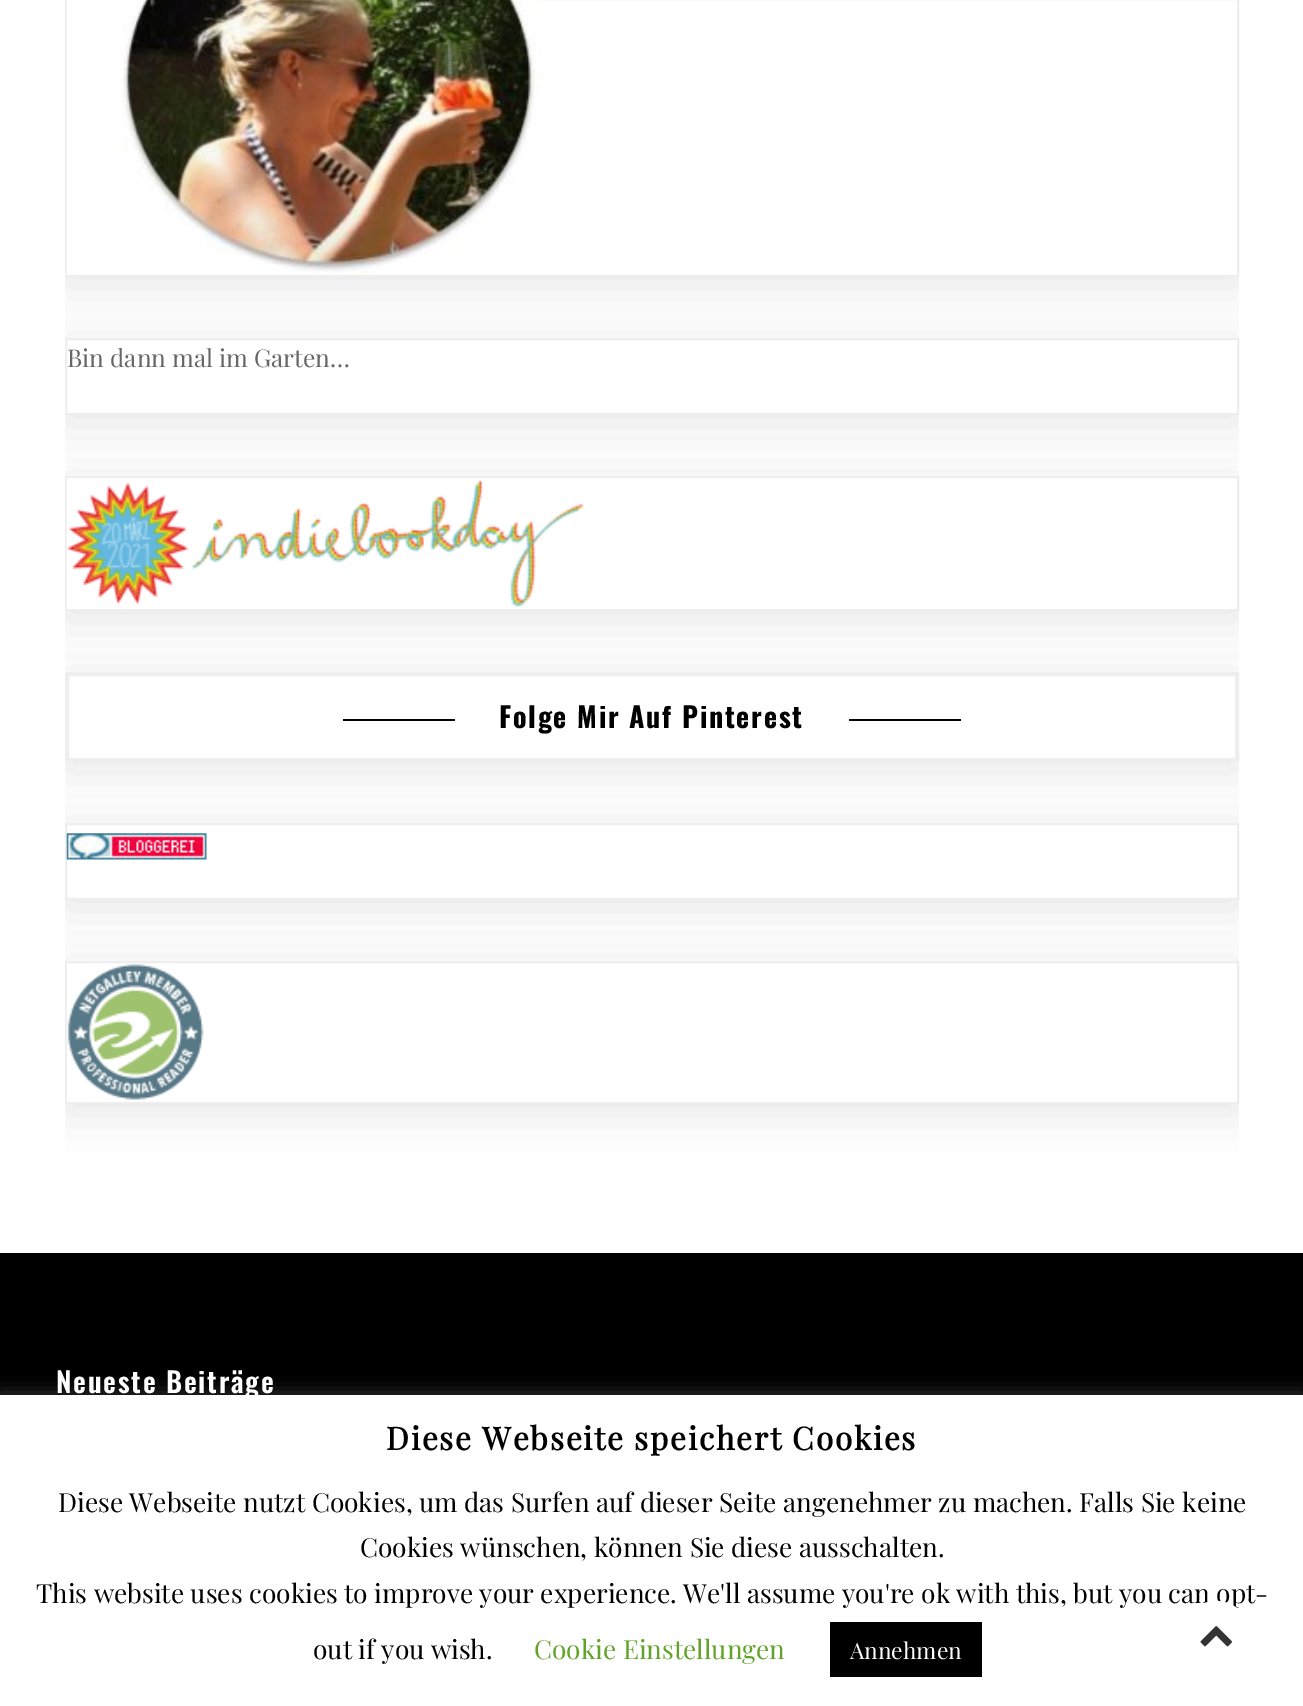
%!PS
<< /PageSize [1303 1706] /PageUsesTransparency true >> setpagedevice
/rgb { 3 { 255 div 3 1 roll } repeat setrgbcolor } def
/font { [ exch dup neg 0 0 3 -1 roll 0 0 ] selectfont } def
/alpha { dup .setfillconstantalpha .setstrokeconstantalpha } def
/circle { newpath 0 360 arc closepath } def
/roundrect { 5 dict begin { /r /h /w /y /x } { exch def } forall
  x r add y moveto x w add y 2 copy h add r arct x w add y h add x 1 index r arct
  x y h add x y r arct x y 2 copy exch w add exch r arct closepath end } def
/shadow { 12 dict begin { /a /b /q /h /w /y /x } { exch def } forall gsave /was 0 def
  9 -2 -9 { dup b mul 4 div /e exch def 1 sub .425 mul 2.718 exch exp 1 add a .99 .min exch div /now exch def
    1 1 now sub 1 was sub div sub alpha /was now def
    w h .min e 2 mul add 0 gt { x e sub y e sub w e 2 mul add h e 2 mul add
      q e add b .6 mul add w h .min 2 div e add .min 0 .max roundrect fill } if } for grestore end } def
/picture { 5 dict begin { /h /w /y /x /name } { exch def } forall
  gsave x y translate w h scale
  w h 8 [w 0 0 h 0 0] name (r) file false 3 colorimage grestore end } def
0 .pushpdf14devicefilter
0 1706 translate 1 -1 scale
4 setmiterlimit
255 255 255 rgb
0 0 1303 1706 rectfill
gsave
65 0 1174 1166 rectclip
0 0 0 rgb
65 -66 1174 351 0 22 0.1 shadow
grestore
541 0 696 275 rectfill
238 238 238 rgb
2 setlinewidth
66 -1 1172 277 rectstroke
(img/1.rgb) 66 0 475 275 picture
gsave
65 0 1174 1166 rectclip
0 0 0 rgb
65 347 1174 77 0 22 0.1 shadow
grestore
255 255 255 rgb
66 339 moveto 1238 339 lineto 1238 414 lineto 66 414 lineto closepath gsave fill grestore
238 238 238 rgb
stroke
gsave
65 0 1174 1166 rectclip
0 0 0 rgb
65 485 1174 135 0 22 0.1 shadow
grestore
255 255 255 rgb
584 478 653 131 rectfill
238 238 238 rgb
66 477 1172 133 rectstroke
(img/2.rgb) 66 478 518 131 picture
gsave
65 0 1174 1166 rectclip
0 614 moveto 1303 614 lineto 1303 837 lineto 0 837 lineto closepath 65 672 moveto 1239 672 lineto 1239 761 lineto 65 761 lineto closepath eoclip newpath
0 0 0 rgb
65 681 1174 89 0 22 0.1 shadow
grestore
66 673 1172 87 rectstroke
68 675 1168 84 rectstroke
0 0 0 rgb
343 719 112 2 rectfill
849 719 112 2 rectfill
gsave
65 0 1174 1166 rectclip
65 831 1174 77 0 22 0.1 shadow
grestore
255 255 255 rgb
66 824 moveto 1238 824 lineto 1238 899 lineto 66 899 lineto closepath gsave fill grestore
238 238 238 rgb
stroke
(img/3.rgb) 66 833 141 27 picture
gsave
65 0 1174 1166 rectclip
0 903 moveto 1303 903 lineto 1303 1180 lineto 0 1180 lineto closepath 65 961 moveto 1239 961 lineto 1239 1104 lineto 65 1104 lineto closepath eoclip newpath
0 0 0 rgb
65 970 1174 143 0 22 0.1 shadow
grestore
66 962 1172 141 rectstroke
(img/4.rgb) 67 964 137 136 picture
0 0 0 rgb
0 1253 1303 142 rectfill
172 171 171 rgb
0 1393 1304 312 0 9 0.3 shadow
255 255 255 rgb
0 1395 1303 311 rectfill
0 0 0 rgb
830 1622 152 55 rectfill
/PlayfairDisplay-Regular 24.5 font
102 102 102 rgb
67 367 moveto (Bin dann mal im Garten…) show
/Oswald-Bold 28 font
0 0 0 rgb
499 728 moveto 1.75 0 (Folge Mir Auf Pinterest) ashow
/Oswald-SemiBold 28 font
255 255 255 rgb
56 1393 moveto 1.75 0 (Neueste Beiträge) ashow
/PlayfairDisplay-Bold 31.5 font
0 0 0 rgb
386 1450 moveto 1.75 0 (Diese Webseite speichert Cookies) ashow
/PlayfairDisplay-Regular 26.25 font
[
  [(Diese Webseite nutzt Cookies, um das Surfen auf dieser Seite angenehmer zu machen. Falls Sie keine) 58 1512]
  [(Cookies wünschen, können Sie diese ausschalten.) 360 1557]
  [(This website uses cookies to improve your experience. We'll assume you're ok with this, but you can opt-) 36 1603]
  [(out if you wish.) 313 1659]
] { aload pop moveto show } forall
98 163 41 rgb
534 1659 moveto (Cookie Einstellungen) show
/PlayfairDisplay-Regular 22.75 font
255 255 255 rgb
850 1659 moveto (Annehmen) show
1216 1636 35 circle fill
(img/5.rgb) 1200 1626 32 21 picture
.poppdf14devicefilter showpage
